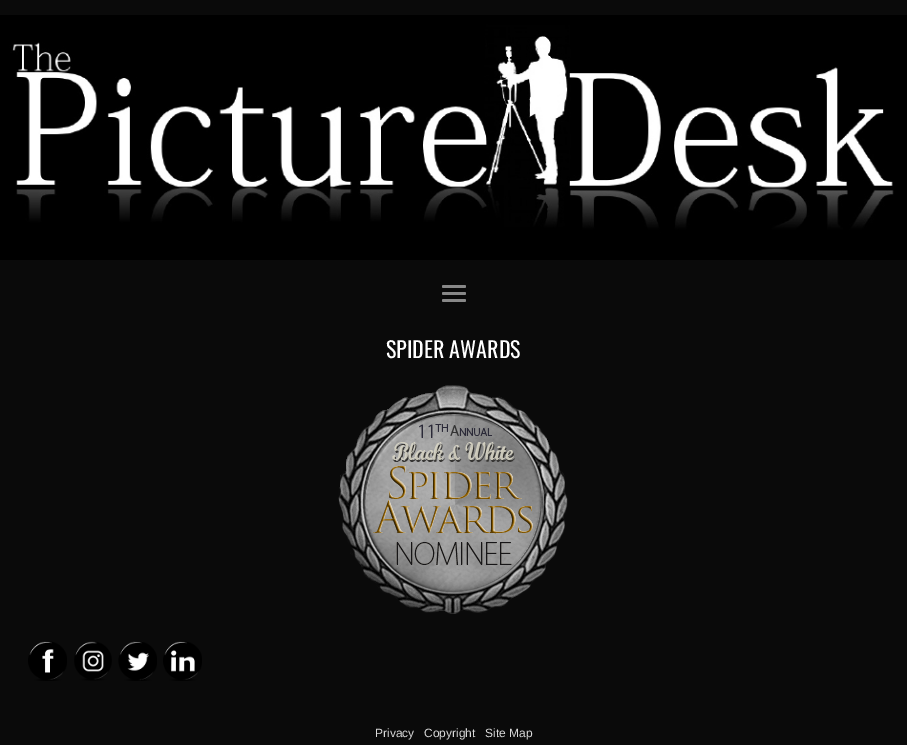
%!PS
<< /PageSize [907 745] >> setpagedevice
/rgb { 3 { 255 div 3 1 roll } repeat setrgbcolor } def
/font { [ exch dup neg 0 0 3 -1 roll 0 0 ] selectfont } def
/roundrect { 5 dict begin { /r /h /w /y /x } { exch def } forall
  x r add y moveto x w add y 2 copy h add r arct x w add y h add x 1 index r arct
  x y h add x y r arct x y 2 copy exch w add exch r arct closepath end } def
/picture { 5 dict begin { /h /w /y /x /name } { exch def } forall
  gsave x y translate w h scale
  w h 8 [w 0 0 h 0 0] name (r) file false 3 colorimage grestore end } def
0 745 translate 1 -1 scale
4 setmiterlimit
10 10 10 rgb
0 0 907 745 rectfill
(img/1.rgb) 0 15 907 245 picture
136 136 136 rgb
442 285 24 3 1.5 roundrect fill
442 292 24 3 1.5 roundrect fill
442 299 24 3 1.5 roundrect fill
(img/2.rgb) 338 385 230 229 picture
(img/3.rgb) 28 641 39 40 picture
(img/4.rgb) 74 641 38 40 picture
(img/5.rgb) 118 641 39 40 picture
(img/6.rgb) 163 641 39 40 picture
/Oswald-Regular 22 font
255 255 255 rgb
386 358 moveto (SPIDER AWARDS) show
/LiberationSans-Regular 12 font
217 217 217 rgb
[
  [(Privacy) 375 737]
  [(Copyright) 424 737]
  [(Site Map) 485 737]
] { aload pop moveto show } forall
showpage
